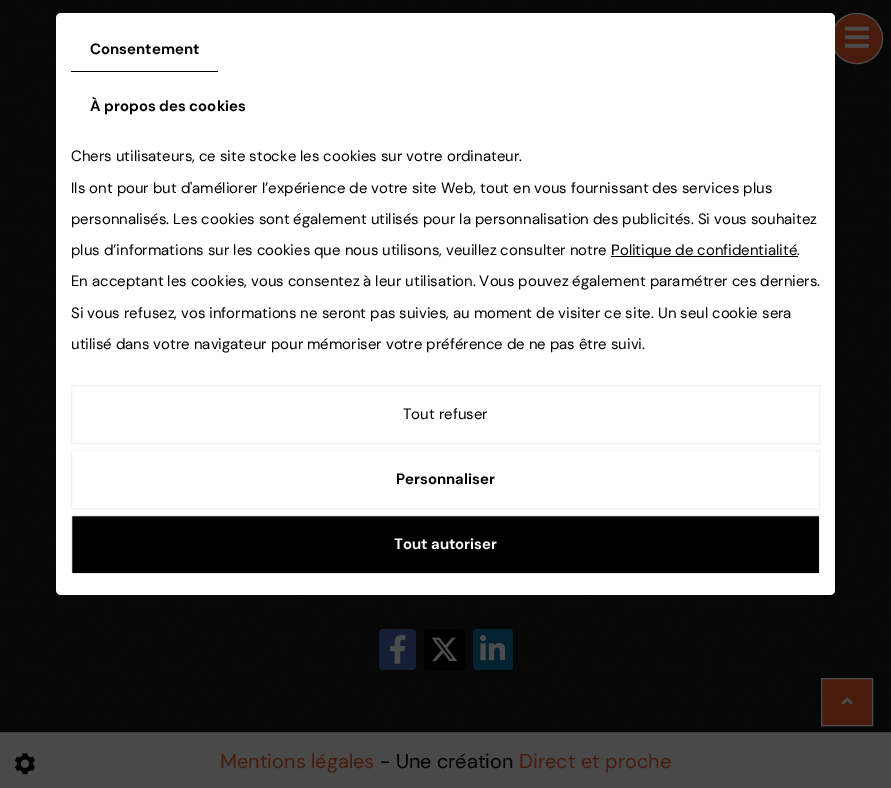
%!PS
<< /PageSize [891 788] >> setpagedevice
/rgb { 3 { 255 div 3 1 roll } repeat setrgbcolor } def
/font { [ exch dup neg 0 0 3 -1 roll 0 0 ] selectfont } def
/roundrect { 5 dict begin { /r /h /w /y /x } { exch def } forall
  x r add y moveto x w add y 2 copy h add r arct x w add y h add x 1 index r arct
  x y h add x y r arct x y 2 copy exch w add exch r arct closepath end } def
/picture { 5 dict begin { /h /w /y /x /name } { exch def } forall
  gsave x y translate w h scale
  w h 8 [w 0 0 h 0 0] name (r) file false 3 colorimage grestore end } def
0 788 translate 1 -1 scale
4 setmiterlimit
77 77 77 rgb
0 0 891 788 rectfill
(img/1.rgb) 0 0 891 733 picture
20 31 53 rgb
379 629 37 41 4 roundrect fill
(img/2.rgb) 390 635 16 29 picture
0 0 0 rgb
424 629 41 41 4 roundrect fill
(img/3.rgb) 431 637 27 25 picture
4 35 50 rgb
473 629 40 41 4 roundrect fill
(img/4.rgb) 480 635 25 26 picture
72 27 13 rgb
831.5 13.5 51 50 25 roundrect gsave fill grestore
77 77 77 rgb
stroke
255 255 255 rgb
56 13 779 582 5 roundrect fill
0 0 0 rgb
71 71 147 1 rectfill
611 256 187 1 rectfill
240 240 240 rgb
71.5 385.5 748 58 rectstroke
71.5 450.5 748 58 rectstroke
0 0 0 rgb
71.5 515.5 moveto 819.5 515.5 lineto 819.5 573.5 lineto 71.5 573.5 lineto closepath gsave fill grestore
240 240 240 rgb
stroke
(img/5.rgb) 845 26 25 22 picture
73 73 73 rgb
0 733 891 55 rectfill
(img/6.rgb) 14 753 22 22 picture
72 27 13 rgb
821.5 678.5 moveto 872.5 678.5 lineto 872.5 725.5 lineto 821.5 725.5 lineto closepath gsave fill grestore
77 77 77 rgb
stroke
(img/7.rgb) 841 697 12 8 picture
/DMSans-Bold 15 font
0 0 0 rgb
90 54 moveto (Consentement) show
90 111 moveto (À propos des cookies) show
/DMSans-Regular 15 font
[
  [(Chers utilisateurs, ce site stocke les cookies sur votre ordinateur.) 71 161]
  [(Ils ont pour but d'améliorer l’expérience de votre site Web, tout en vous fournissant des services plus) 71 193]
  [(personnalisés. Les cookies sont également utilisés pour la personnalisation des publicités. Si vous souhaitez) 71 224]
  [(plus d’informations sur les cookies que nous utilisons, veuillez consulter notre) 71 255]
  [(Politique de confidentialité.) 611 255]
  [(En acceptant les cookies, vous consentez à leur utilisation. Vous pouvez également paramétrer ces derniers.) 71 286]
  [(Si vous refusez, vos informations ne seront pas suivies, au moment de visiter ce site. Un seul cookie sera) 71 318]
  [(utilisé dans votre navigateur pour mémoriser votre préférence de ne pas être suivi.) 71 349]
  [(Tout refuser) 403 419]
] { aload pop moveto show } forall
/DMSans-Bold 15 font
396 484 moveto (Personnaliser) show
255 255 255 rgb
394 549 moveto (Tout autoriser) show
/DMSans-Regular 20 font
72 27 13 rgb
220 768 moveto (Mentions légales) show
0 0 0 rgb
380 768 moveto (- Une création) show
72 27 13 rgb
519 768 moveto (Direct et proche) show
showpage
